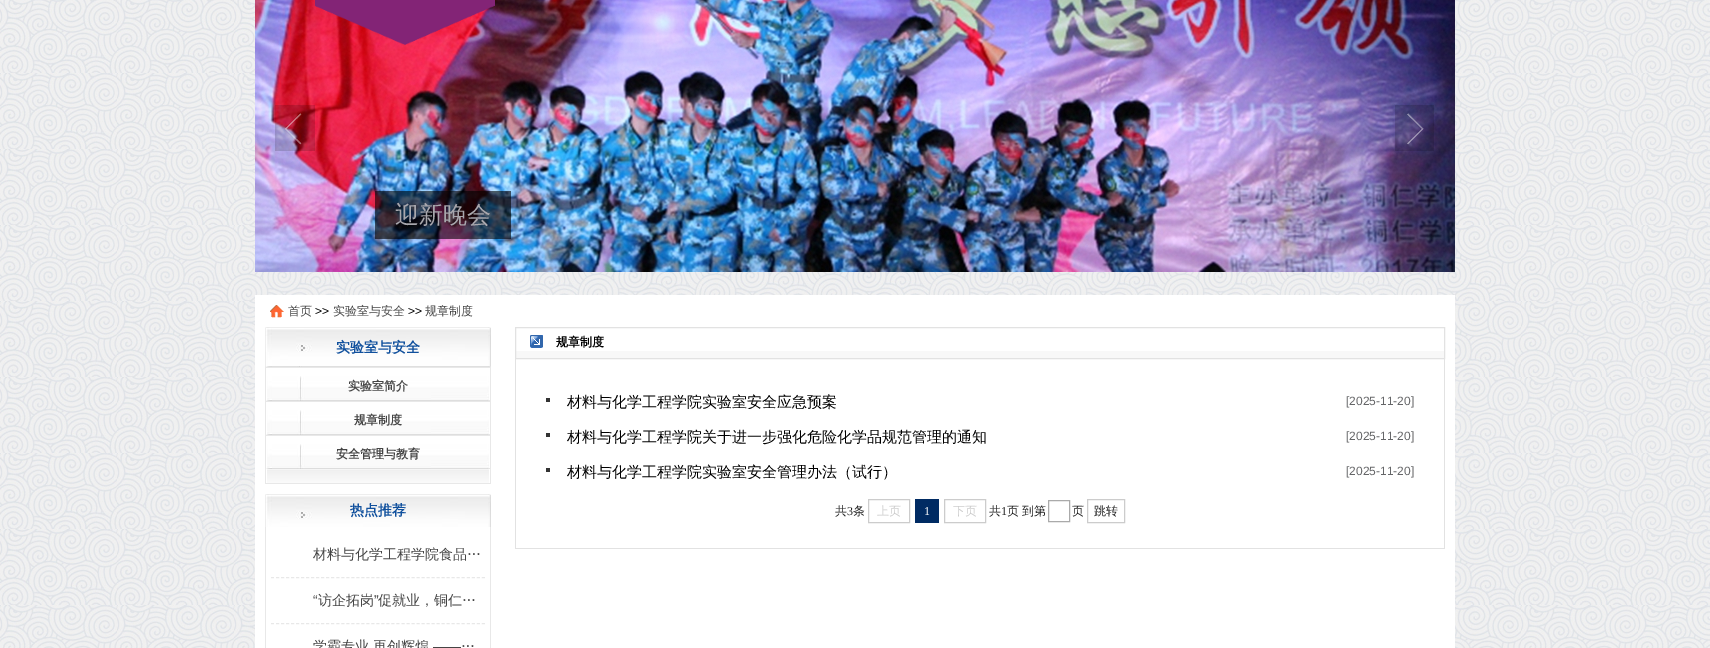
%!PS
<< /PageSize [1710 648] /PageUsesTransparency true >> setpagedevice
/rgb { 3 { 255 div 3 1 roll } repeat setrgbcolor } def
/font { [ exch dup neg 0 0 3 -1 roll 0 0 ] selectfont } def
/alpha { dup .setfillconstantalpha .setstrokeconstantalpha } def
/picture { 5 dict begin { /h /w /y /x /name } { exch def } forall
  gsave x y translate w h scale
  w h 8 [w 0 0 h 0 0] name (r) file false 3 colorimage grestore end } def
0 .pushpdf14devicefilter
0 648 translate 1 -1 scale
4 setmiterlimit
255 255 255 rgb
0 0 1710 648 rectfill
(img/1.rgb) 0 0 1710 648 picture
(img/5.rgb) 255 0 1200 272 picture
(img/2.rgb) 315 0 180 45 picture
(img/3.rgb) 275 105 40 46 picture
(img/4.rgb) 1395 105 39 46 picture
0.6 alpha
0 0 0 rgb
375 191 136 48 rectfill
1 alpha
255 255 255 rgb
255 295 1200 353 rectfill
(img/6.rgb) 270 305 14 13 picture
(img/7.rgb) 265 327 226 40 picture
232 232 232 rgb
490 367 1 102 rectfill
265 367 1 102 rectfill
(img/8.rgb) 266 376 224 25 picture
266 367 224 1 rectfill
(img/8.rgb) 266 410 224 25 picture
266 401 224 1 rectfill
(img/8.rgb) 266 444 224 25 picture
266 435 224 1 rectfill
(img/9.rgb) 265 469 226 14 picture
265 483 226 1 rectfill
(img/10.rgb) 265 494 226 33 picture
490 527 1 121 rectfill
265 527 1 121 rectfill
[3 2.02] 0 setdash
271 577.5 moveto 485 577.5 lineto stroke
271 623.5 moveto 485 623.5 lineto stroke
248 248 248 rgb
515 351 930 7 rectfill
226 226 226 rgb
[] 0 setdash
515.5 327.5 929 31 rectstroke
(img/11.rgb) 530 335 13 13 picture
[
  [1444 359 1 190 226 226 226]
  [515 548 930 1 226 226 226]
  [515 359 1 190 226 226 226]
  [546 398 4 4 51 51 51]
  [546 433 4 4 51 51 51]
  [546 468 4 4 51 51 51]
] { aload pop rgb rectfill } forall
204 204 204 rgb
868.5 499.5 41 23 rectstroke
0 43 99 rgb
915 499 24 24 rectfill
204 204 204 rgb
944.5 499.5 41 23 rectstroke
170 170 170 rgb
1048.5 500.5 21 21 rectstroke
204 204 204 rgb
1087.5 499.5 37 23 rectstroke
/WenQuanYiZenHei-Medium 24 font
168 167 173 rgb
395 223 moveto (迎新晚会) show
/WenQuanYiZenHei-Medium 12 font
69 69 69 rgb
288 315 moveto (首页) show
/LiberationSans-Regular 12 font
0 0 0 rgb
315 315 moveto (>>) show
/WenQuanYiZenHei-Medium 12 font
69 69 69 rgb
333 315 moveto (实验室与安全) show
/LiberationSans-Regular 12 font
0 0 0 rgb
408 315 moveto (>>) show
/WenQuanYiZenHei-Medium 12 font
69 69 69 rgb
425 315 moveto (规章制度) show
/WenQuanYiZenHei-Bold 14 font
16 80 157 rgb
336 352 moveto (实验室与安全) show
/WenQuanYiZenHei-Bold 12 font
69 69 69 rgb
[
  [(实验室简介) 348 390]
  [(规章制度) 354 424]
  [(安全管理与教育) 336 458]
] { aload pop moveto show } forall
/WenQuanYiZenHei-Bold 14 font
16 80 157 rgb
350 515 moveto (热点推荐) show
/WenQuanYiZenHei-Medium 14 font
69 69 69 rgb
313 559 moveto (材料与化学工程学院食品…) show
/LiberationSans-Regular 14 font
313 605 moveto (“) show
/WenQuanYiZenHei-Medium 14 font
318 605 moveto (访企拓岗) show
/LiberationSans-Regular 14 font
374 605 moveto (”) show
/WenQuanYiZenHei-Medium 14 font
[
  [(促就业，铜仁…) 378 605]
  [(学霸专业) 313 651]
  [(再创辉煌) 373 651]
] { aload pop moveto show } forall
/LiberationSans-Regular 14 font
433 651 moveto (——) show
/WenQuanYiZenHei-Medium 14 font
461 651 moveto (…) show
/WenQuanYiZenHei-Bold 12 font
0 0 0 rgb
556 346 moveto (规章制度) show
/WenQuanYiZenHei-Medium 15 font
567 407 moveto (材料与化学工程学院实验室安全应急预案) show
/LiberationSans-Regular 12 font
101 102 104 rgb
1346 405 moveto ([2025-11-20]) show
/WenQuanYiZenHei-Medium 15 font
0 0 0 rgb
567 442 moveto (材料与化学工程学院关于进一步强化危险化学品规范管理的通知) show
/LiberationSans-Regular 12 font
101 102 104 rgb
1346 440 moveto ([2025-11-20]) show
/WenQuanYiZenHei-Medium 15 font
0 0 0 rgb
567 477 moveto (材料与化学工程学院实验室安全管理办法（试行）) show
/LiberationSans-Regular 12 font
101 102 104 rgb
1346 475 moveto ([2025-11-20]) show
/WenQuanYiZenHei-Medium 12 font
34 34 34 rgb
835 515 moveto (共) show
/LiberationSerif-Regular 12 font
847 515 moveto (3) show
/WenQuanYiZenHei-Medium 12 font
853 515 moveto (条) show
204 204 204 rgb
877 515 moveto (上页) show
/LiberationSerif-Regular 12 font
255 255 255 rgb
924 515 moveto (1) show
/WenQuanYiZenHei-Medium 12 font
204 204 204 rgb
953 515 moveto (下页) show
34 34 34 rgb
989 515 moveto (共) show
/LiberationSerif-Regular 12 font
1001 515 moveto (1) show
/WenQuanYiZenHei-Medium 12 font
[
  [(页) 1007 515]
  [(到第) 1022 515]
  [(页) 1072 515]
  [(跳转) 1094 515]
] { aload pop moveto show } forall
.poppdf14devicefilter showpage
